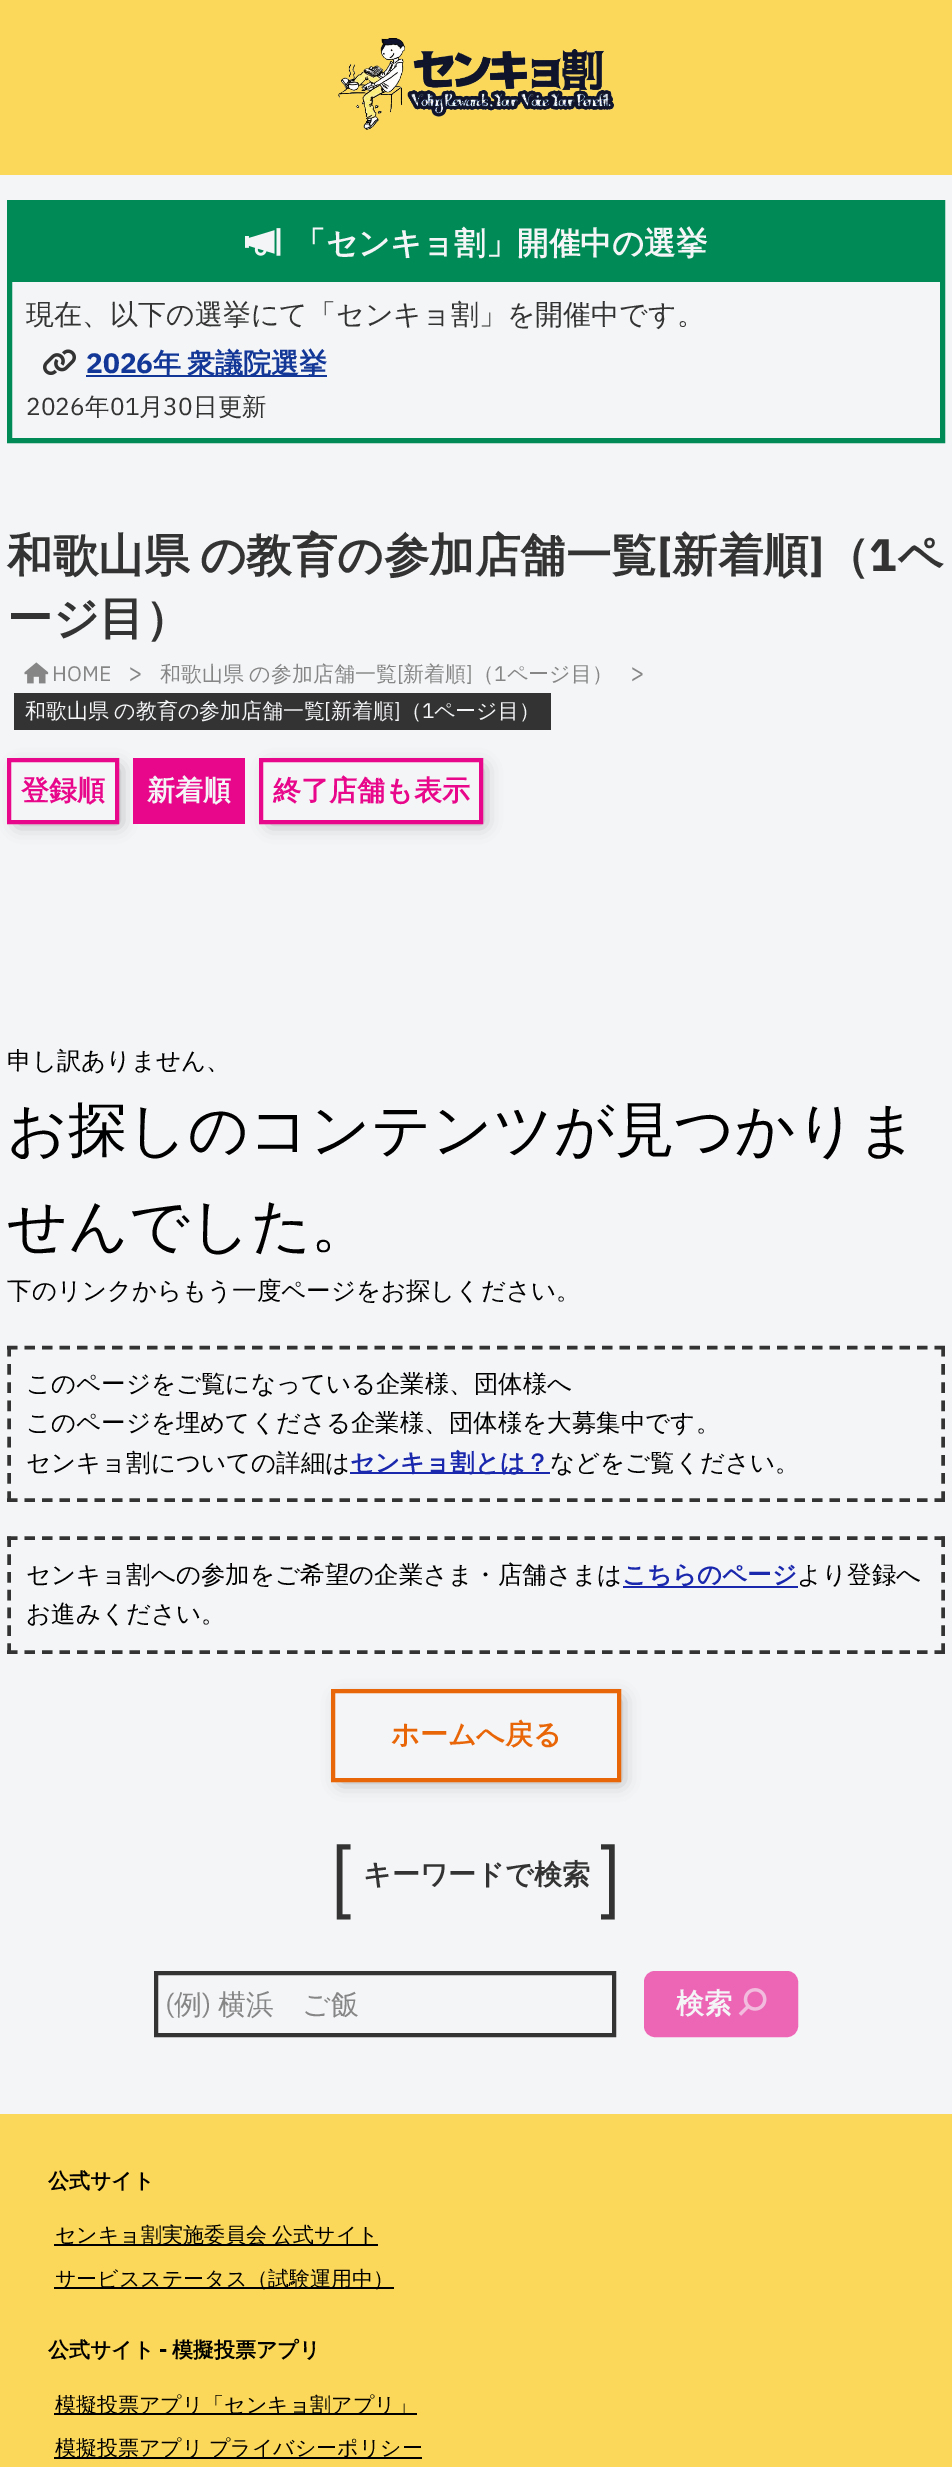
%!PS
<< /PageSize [952 2467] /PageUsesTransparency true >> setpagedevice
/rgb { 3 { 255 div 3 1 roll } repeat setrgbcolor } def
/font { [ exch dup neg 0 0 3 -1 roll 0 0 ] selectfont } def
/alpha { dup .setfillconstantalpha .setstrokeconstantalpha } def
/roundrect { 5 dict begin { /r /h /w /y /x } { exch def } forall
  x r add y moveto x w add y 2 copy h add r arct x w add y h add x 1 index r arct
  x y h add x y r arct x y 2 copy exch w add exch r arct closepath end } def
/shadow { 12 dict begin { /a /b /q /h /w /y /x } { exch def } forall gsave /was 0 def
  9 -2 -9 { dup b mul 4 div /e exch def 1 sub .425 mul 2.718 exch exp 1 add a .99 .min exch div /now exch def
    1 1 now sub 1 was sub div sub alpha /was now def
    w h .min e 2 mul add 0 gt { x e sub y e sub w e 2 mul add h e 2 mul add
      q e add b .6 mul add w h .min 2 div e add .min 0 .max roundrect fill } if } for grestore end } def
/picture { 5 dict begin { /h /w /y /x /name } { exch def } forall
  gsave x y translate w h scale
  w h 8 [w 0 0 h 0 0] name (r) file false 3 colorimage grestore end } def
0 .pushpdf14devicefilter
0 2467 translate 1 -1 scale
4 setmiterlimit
244 245 247 rgb
0 0 952 2467 rectfill
251 216 89 rgb
0 0 952 175 rectfill
(img/1.rgb) 338 38 277 92 picture
0 138 85 rgb
5 setlinewidth
9.5 202.5 933 238 rectstroke
12 205 928 77 rectfill
(img/2.rgb) 245 228 36 28 picture
(img/3.rgb) 43 349 33 26 picture
18 55 151 rgb
86 375 241 2 rectfill
(img/4.rgb) 24 662 25 22 picture
51 51 51 rgb
14 693 537 37 rectfill
gsave
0 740 moveto 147 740 lineto 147 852 lineto 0 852 lineto closepath 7 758 moveto 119 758 lineto 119 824 lineto 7 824 lineto closepath eoclip newpath
0 0 0 rgb
18 768 101 56 0 9 0.3 shadow
grestore
232 7 138 rgb
4 setlinewidth
9 760 108 62 rectstroke
133 758 112 66 rectfill
gsave
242 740 moveto 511 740 lineto 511 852 lineto 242 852 lineto closepath 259 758 moveto 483 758 lineto 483 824 lineto 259 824 lineto closepath eoclip newpath
0 0 0 rgb
270 768 213 56 0 9 0.3 shadow
grestore
261 760 220 62 rectstroke
51 51 51 rgb
3.5 setlinewidth
[10.5 7] 0 setdash
7 1347.5 moveto 945 1347.5 lineto stroke
[10.5 7.67] 0 setdash
943 1346 moveto 943 1501.5 lineto stroke
[10.5 7] 0 setdash
7 1500 moveto 945 1500 lineto stroke
[10.5 7.67] 0 setdash
9 1346 moveto 9 1501.5 lineto stroke
26 40 173 rgb
350 1472 200 2 rectfill
51 51 51 rgb
[10.5 7] 0 setdash
7 1538 moveto 945 1538 lineto stroke
[10.5 7.3] 0 setdash
943 1536.5 moveto 943 1654 lineto stroke
[10.5 7] 0 setdash
7 1652 moveto 945 1652 lineto stroke
[10.5 7.3] 0 setdash
9 1536.5 moveto 9 1654 lineto stroke
26 40 173 rgb
623 1586 175 2 rectfill
0 0 0 rgb
341 1699 280 83 0 9 0.3 shadow
244 245 247 rgb
333 1691 moveto 619 1691 lineto 619 1780 lineto 333 1780 lineto closepath gsave fill grestore
232 102 7 rgb
4 setlinewidth
[] 0 setdash
stroke
51 51 51 rgb
156 1973 458 62 rectstroke
237 102 182 rgb
646 1973 150 62 9 roundrect gsave fill grestore
stroke
(img/5.rgb) 738 1988 29 28 picture
[
  [0 2114 952 353 251 216 89]
  [54 2244 324 2 0 0 0]
  [54 2287 340 2 0 0 0]
  [54 2413 363 2 0 0 0]
  [54 2457 368 2 0 0 0]
] { aload pop rgb rectfill } forall
/WenQuanYiZenHei-Bold 31.5 font
244 245 247 rgb
294 254 moveto (「センキョ割」開催中の選挙) show
/WenQuanYiZenHei-Medium 28 font
51 51 51 rgb
26 324 moveto (現在、以下の選挙にて「センキョ割」を開催中です。) show
/IBMPlexSans-Bold 28 font
18 55 151 rgb
86 373 moveto (2026) show
/WenQuanYiZenHei-Bold 28 font
153 373 moveto -2 0 32 (年 衆議院選挙) widthshow
/IBMPlexSans-Regular 24.5 font
51 51 51 rgb
26 415 moveto (2026) show
/WenQuanYiZenHei-Medium 24.5 font
85 415 moveto (年) show
/IBMPlexSans-Regular 24.5 font
110 415 moveto (01) show
/WenQuanYiZenHei-Medium 24.5 font
139 415 moveto (月) show
/IBMPlexSans-Regular 24.5 font
163 415 moveto (30) show
/WenQuanYiZenHei-Medium 24.5 font
193 415 moveto (日更新) show
/WenQuanYiZenHei-Bold 45.5 font
7 571 moveto -3 0 32 (和歌山県 の教育の参加店舗一覧) widthshow
/IBMPlexSans-Bold 45.5 font
657 571 moveto ([) show
/WenQuanYiZenHei-Bold 45.5 font
672 571 moveto (新着順) show
/IBMPlexSans-Bold 45.5 font
809 571 moveto (]) show
/WenQuanYiZenHei-Bold 45.5 font
824 571 moveto (（) show
/IBMPlexSans-Bold 45.5 font
869 571 moveto (1) show
/WenQuanYiZenHei-Bold 45.5 font
897 571 moveto (ペ) show
7 634 moveto (ージ目）) show
/IBMPlexSans-Regular 21 font
134 134 134 rgb
52 681 moveto (HOME) show
/IBMPlexSans-Regular 24.5 font
128 681 moveto (>) show
/WenQuanYiZenHei-Medium 21 font
160 681 moveto -1 0 32 (和歌山県 の参加店舗一覧) widthshow
/IBMPlexSans-Regular 21 font
397 681 moveto ([) show
/WenQuanYiZenHei-Medium 21 font
403 681 moveto (新着順) show
/IBMPlexSans-Regular 21 font
466 681 moveto (]) show
/WenQuanYiZenHei-Medium 21 font
473 681 moveto (（) show
/IBMPlexSans-Regular 21 font
494 681 moveto (1) show
/WenQuanYiZenHei-Medium 21 font
507 681 moveto (ページ目）) show
/IBMPlexSans-Regular 24.5 font
630 681 moveto (>) show
/WenQuanYiZenHei-Medium 21 font
244 245 247 rgb
25 718 moveto -1 0 32 (和歌山県 の教育の参加店舗一覧) widthshow
/IBMPlexSans-Regular 21 font
324 718 moveto ([) show
/WenQuanYiZenHei-Medium 21 font
331 718 moveto (新着順) show
/IBMPlexSans-Regular 21 font
394 718 moveto (]) show
/WenQuanYiZenHei-Medium 21 font
401 718 moveto (（) show
/IBMPlexSans-Regular 21 font
422 718 moveto (1) show
/WenQuanYiZenHei-Medium 21 font
434 718 moveto (ページ目）) show
/WenQuanYiZenHei-Bold 28 font
232 7 138 rgb
21 800 moveto (登録順) show
244 245 247 rgb
147 800 moveto (新着順) show
232 7 138 rgb
273 800 moveto (終了店舗も表示) show
/WenQuanYiZenHei-Medium 24.5 font
0 0 0 rgb
7 1069 moveto (申し訳ありません、) show
/WenQuanYiZenHei-Medium 59.5 font
7 1150 moveto (お探しのコンテンツが見つかりま) show
7 1246 moveto (せんでした。) show
/WenQuanYiZenHei-Medium 24.5 font
[
  [(下のリンクからもう一度ページをお探しください。) 7 1299]
  [(このページをご覧になっている企業様、団体様へ) 26 1392]
  [(このページを埋めてくださる企業様、団体様を大募集中です。) 26 1431]
  [(センキョ割についての詳細は) 26 1471]
] { aload pop moveto show } forall
/WenQuanYiZenHei-Bold 24.5 font
26 40 173 rgb
350 1471 moveto (センキョ割とは？) show
/WenQuanYiZenHei-Medium 24.5 font
0 0 0 rgb
550 1471 moveto (などをご覧ください。) show
26 1583 moveto (センキョ割への参加をご希望の企業さま・店舗さまは) show
/WenQuanYiZenHei-Bold 24.5 font
26 40 173 rgb
622 1583 moveto (こちらのページ) show
/WenQuanYiZenHei-Medium 24.5 font
0 0 0 rgb
797 1583 moveto (より登録へ) show
26 1622 moveto (お進みください。) show
/WenQuanYiZenHei-Bold 28 font
232 102 7 rgb
391 1744 moveto (ホームへ戻る) show
/IBMPlexSans-Regular 84 font
51 51 51 rgb
329 1908 moveto ([) show
/WenQuanYiZenHei-Bold 28 font
363 1884 moveto (キーワードで検索) show
/IBMPlexSans-Regular 84 font
596 1908 moveto (]) show
/IBMPlexSans-Regular 28 font
134 134 134 rgb
165 2014 moveto (\() show
/WenQuanYiZenHei-Medium 28 font
174 2014 moveto (例) show
/IBMPlexSans-Regular 28 font
202 2014 moveto (\)) show
/WenQuanYiZenHei-Medium 28 font
218 2014 moveto (横浜　ご飯) show
/WenQuanYiZenHei-Bold 28 font
244 245 247 rgb
676 2013 moveto (検索) show
/WenQuanYiZenHei-Bold 21 font
0 0 0 rgb
48 2188 moveto (公式サイト) show
/WenQuanYiZenHei-Medium 21 font
55 2242 moveto -1 0 32 (センキョ割実施委員会 公式サイト) widthshow
55 2286 moveto (サービスステータス（試験運用中）) show
/WenQuanYiZenHei-Bold 21 font
48 2357 moveto (公式サイト) show
/IBMPlexSans-Bold 21 font
159 2357 moveto (-) show
/WenQuanYiZenHei-Bold 21 font
172 2357 moveto (模擬投票アプリ) show
/WenQuanYiZenHei-Medium 21 font
55 2412 moveto (模擬投票アプリ「センキョ割アプリ」) show
55 2455 moveto -1 0 32 (模擬投票アプリ プライバシーポリシー) widthshow
.poppdf14devicefilter showpage
